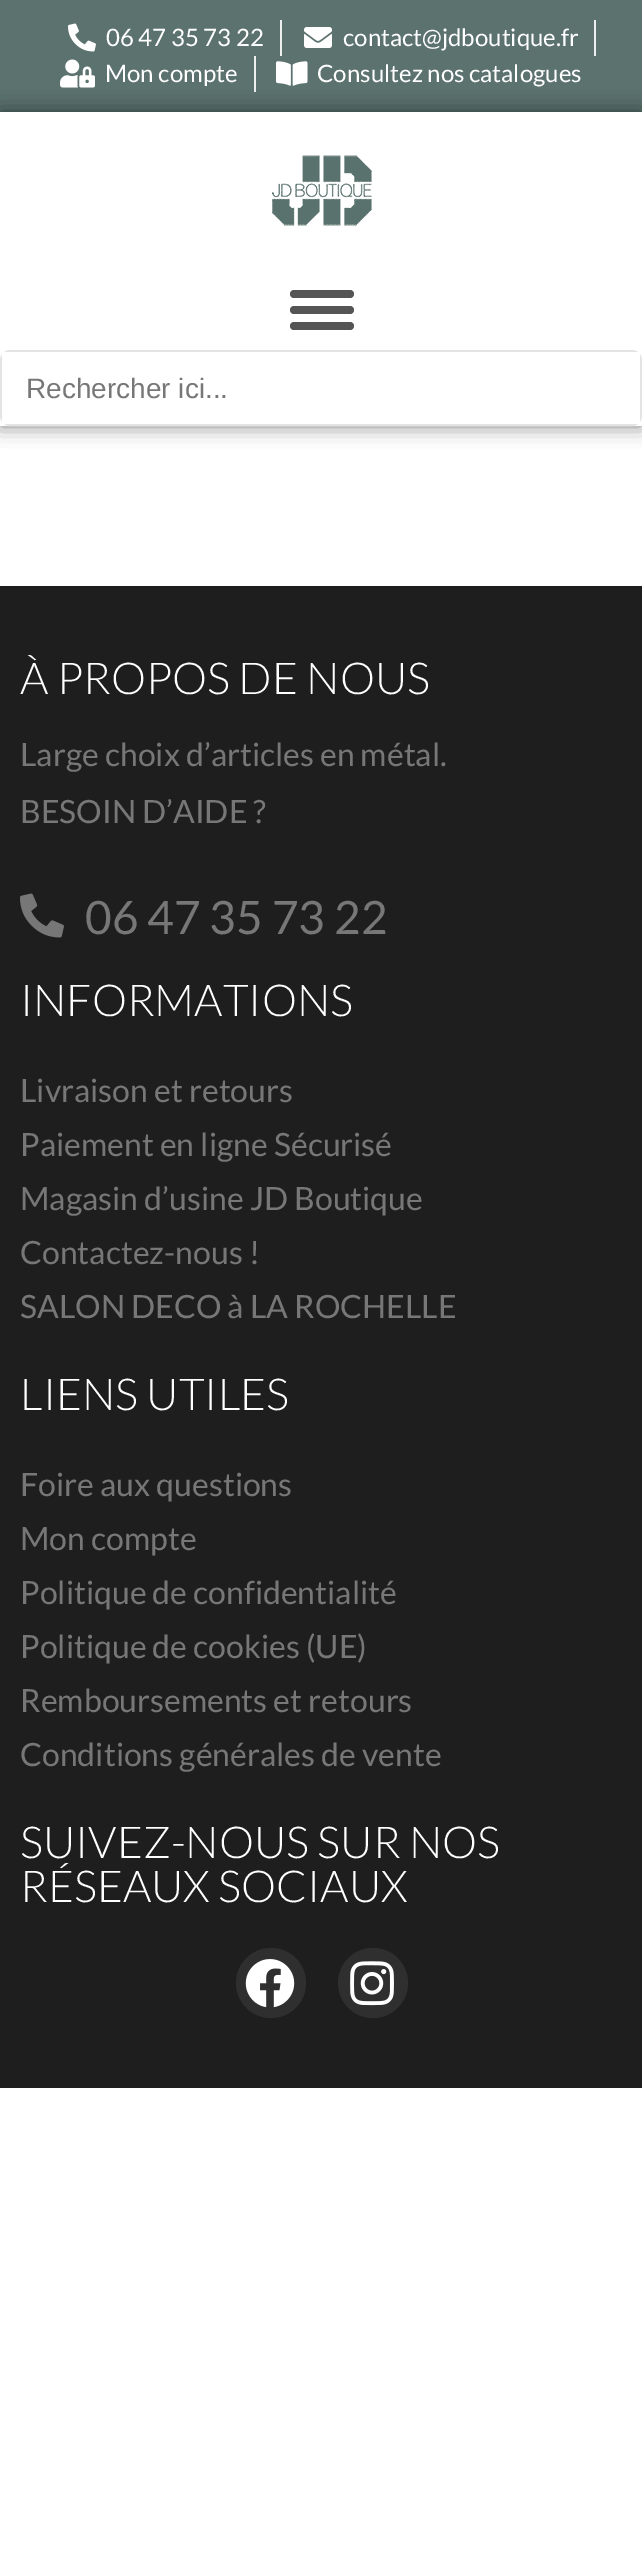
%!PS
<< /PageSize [642 2560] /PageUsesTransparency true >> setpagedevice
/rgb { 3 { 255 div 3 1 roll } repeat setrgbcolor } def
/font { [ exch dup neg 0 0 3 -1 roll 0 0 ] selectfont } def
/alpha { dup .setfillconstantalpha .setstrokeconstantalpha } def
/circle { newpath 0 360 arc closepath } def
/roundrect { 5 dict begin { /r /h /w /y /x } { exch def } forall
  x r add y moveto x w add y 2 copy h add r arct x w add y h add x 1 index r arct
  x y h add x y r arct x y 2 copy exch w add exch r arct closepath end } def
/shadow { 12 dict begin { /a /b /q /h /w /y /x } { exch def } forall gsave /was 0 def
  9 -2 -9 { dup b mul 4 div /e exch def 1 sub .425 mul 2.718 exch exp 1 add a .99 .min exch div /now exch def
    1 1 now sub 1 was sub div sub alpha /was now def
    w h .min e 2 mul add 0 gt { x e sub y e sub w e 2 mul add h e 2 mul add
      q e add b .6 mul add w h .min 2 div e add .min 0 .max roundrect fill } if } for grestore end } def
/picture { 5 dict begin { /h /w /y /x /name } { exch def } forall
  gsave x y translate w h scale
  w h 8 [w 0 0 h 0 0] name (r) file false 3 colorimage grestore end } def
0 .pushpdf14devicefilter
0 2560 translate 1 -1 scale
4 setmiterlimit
255 255 255 rgb
0 0 642 2560 rectfill
91 114 110 rgb
0 0 642 112 rectfill
(img/1.rgb) 68 23 28 29 picture
238 238 238 rgb
280 20 2 36 rectfill
(img/2.rgb) 304 27 28 21 picture
594 20 2 36 rectfill
(img/3.rgb) 60 59 35 29 picture
254 56 2 36 rectfill
(img/4.rgb) 276 61 32 25 picture
gsave
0 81 moveto 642 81 lineto 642 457 lineto 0 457 lineto closepath 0 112 moveto 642 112 lineto 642 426 lineto 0 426 lineto closepath eoclip newpath
0 0 0 rgb
0 112 642 314 0 10 0.5 shadow
grestore
(img/5.rgb) 272 155 100 71 picture
85 85 85 rgb
290 290 64 8 4 roundrect fill
290 306 64 8 4 roundrect fill
290 322 64 8 4 roundrect fill
228 228 228 rgb
2 setlinewidth
1 351 640 74 9 roundrect stroke
255 255 255 rgb
2 352 638 72 rectfill
30 30 31 rgb
0 586 642 1502 rectfill
(img/6.rgb) 20 893 44 45 picture
47 47 48 rgb
271 1983 35 circle fill
(img/7.rgb) 245 1959 50 49 picture
373 1983 35 circle fill
(img/8.rgb) 350 1961 44 45 picture
/Lato-Regular 24 font
255 255 255 rgb
[
  [(06 47 35 73 22) 106 46]
  [(contact@jdboutique.fr) 343 46]
  [(Mon compte) 105 82]
  [(Consultez nos catalogues) 317 82]
] { aload pop moveto show } forall
/LiberationSans-Regular 28 font
119 119 119 rgb
26 398 moveto (Rechercher ici...) show
/Lato-Light 44 font
255 255 255 rgb
20 694 moveto (À PROPOS DE NOUS) show
/Lato-Regular 32 font
119 119 119 rgb
20 766 moveto (Large choix d’articles en métal.) show
20 823 moveto (BESOIN D’AIDE ?) show
/Lato-Regular 46 font
85 934 moveto (06 47 35 73 22) show
/Lato-Light 44 font
255 255 255 rgb
20 1016 moveto (INFORMATIONS) show
/Lato-Regular 32 font
119 119 119 rgb
[
  [(Livraison et retours) 20 1102]
  [(Paiement en ligne Sécurisé) 20 1156]
  [(Magasin d’usine JD Boutique) 20 1210]
  [(Contactez-nous !) 20 1264]
  [(SALON DECO à LA ROCHELLE) 20 1318]
] { aload pop moveto show } forall
/Lato-Light 44 font
255 255 255 rgb
20 1410 moveto (LIENS UTILES) show
/Lato-Regular 32 font
119 119 119 rgb
[
  [(Foire aux questions) 20 1496]
  [(Mon compte) 20 1550]
  [(Politique de confidentialité) 20 1604]
  [(Politique de cookies \(UE\)) 20 1658]
  [(Remboursements et retours) 20 1712]
  [(Conditions générales de vente) 20 1766]
] { aload pop moveto show } forall
/Lato-Light 44 font
255 255 255 rgb
20 1858 moveto (SUIVEZ-NOUS SUR NOS) show
20 1902 moveto (RÉSEAUX SOCIAUX) show
.poppdf14devicefilter showpage
